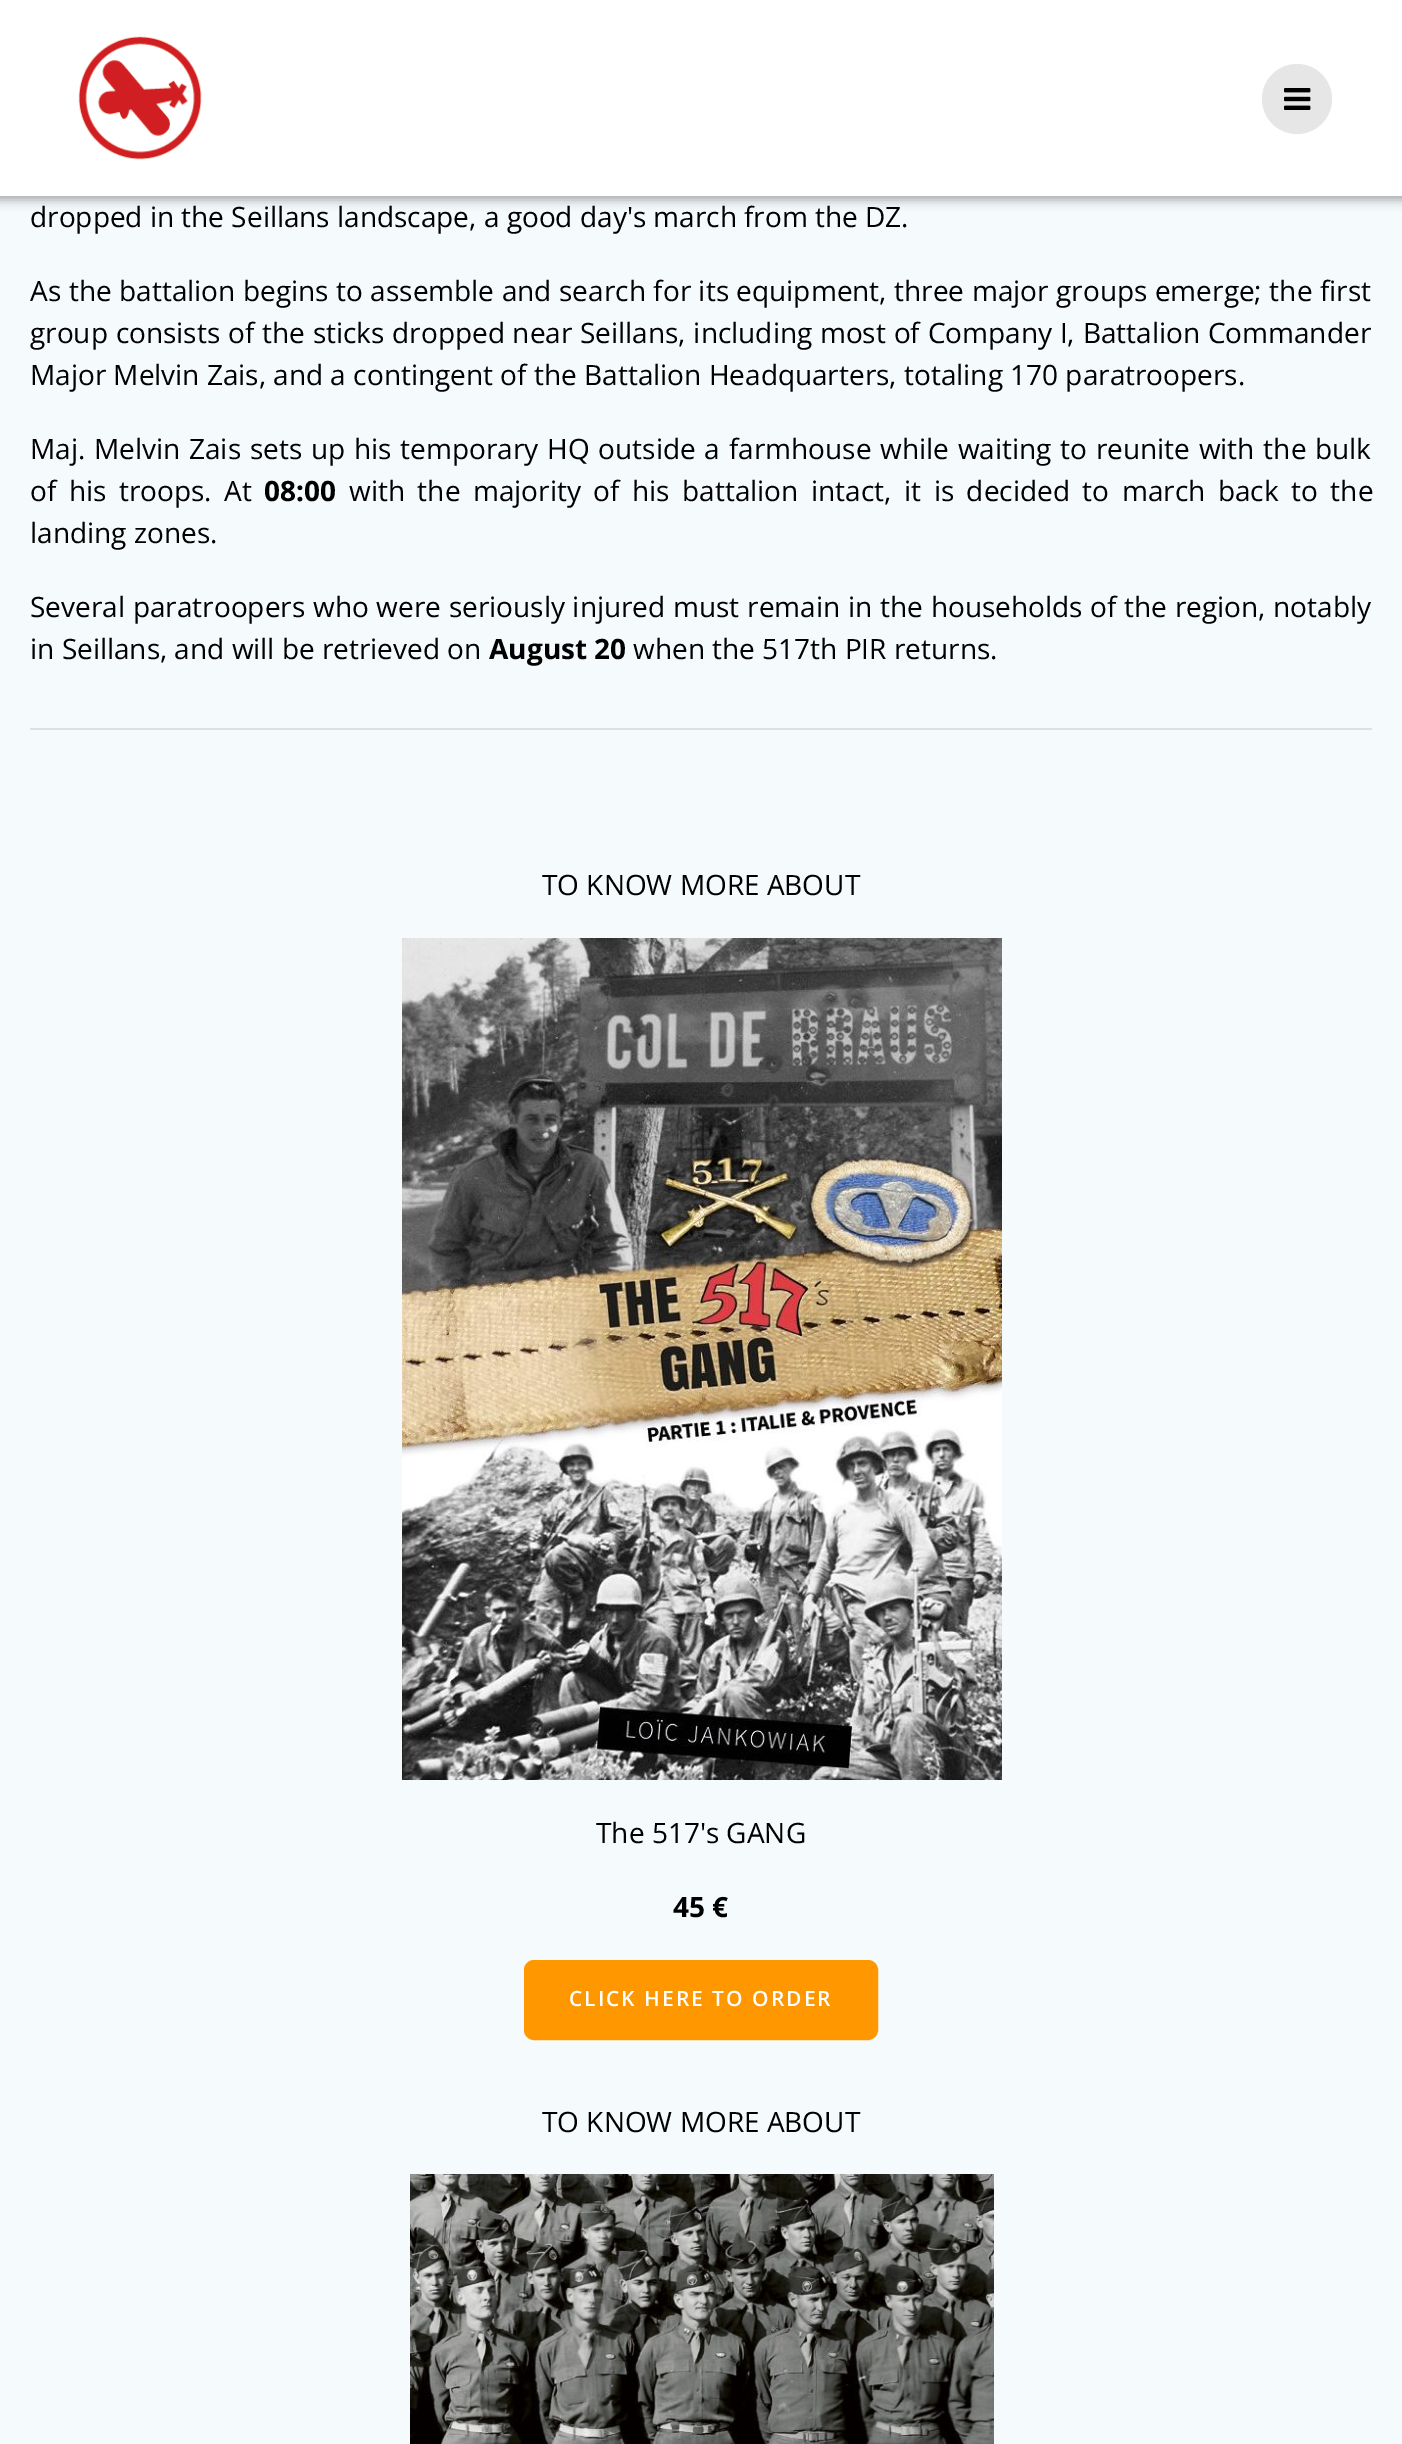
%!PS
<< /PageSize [1402 2444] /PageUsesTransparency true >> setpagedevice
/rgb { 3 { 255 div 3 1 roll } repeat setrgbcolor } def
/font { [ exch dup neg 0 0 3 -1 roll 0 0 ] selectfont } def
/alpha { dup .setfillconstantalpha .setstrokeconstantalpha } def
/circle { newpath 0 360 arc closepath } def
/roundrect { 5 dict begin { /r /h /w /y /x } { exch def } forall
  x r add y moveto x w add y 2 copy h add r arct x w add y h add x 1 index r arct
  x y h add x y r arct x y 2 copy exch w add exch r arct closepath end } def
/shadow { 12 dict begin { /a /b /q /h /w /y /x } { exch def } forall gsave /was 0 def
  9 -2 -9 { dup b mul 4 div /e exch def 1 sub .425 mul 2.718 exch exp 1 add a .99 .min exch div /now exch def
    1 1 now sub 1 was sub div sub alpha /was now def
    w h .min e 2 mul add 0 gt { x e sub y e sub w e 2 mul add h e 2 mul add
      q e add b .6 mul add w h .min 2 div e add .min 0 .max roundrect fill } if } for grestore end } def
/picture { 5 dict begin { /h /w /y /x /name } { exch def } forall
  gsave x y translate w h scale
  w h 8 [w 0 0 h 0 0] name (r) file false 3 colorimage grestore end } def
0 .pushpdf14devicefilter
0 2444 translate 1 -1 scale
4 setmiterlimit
245 250 253 rgb
0 0 1402 2444 rectfill
0 0 0 rgb
-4 -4 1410 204 0 5 0.33 shadow
255 255 255 rgb
0 0 1402 196 rectfill
(img/1.rgb) 78 36 124 124 picture
230 230 230 rgb
1297 99 35 circle fill
(img/2.rgb) 1284 88 27 22 picture
221 225 228 rgb
30 728 1342 2 rectfill
(img/3.rgb) 402 938 600 842 picture
255 152 0 rgb
526 1962 350 76 8 roundrect gsave fill grestore
4 setlinewidth
stroke
(img/4.rgb) 410 2174 584 270 picture
/OpenSans-Regular 28 font
0 0 0 rgb
30 227 moveto (dropped in the Seillans landscape, a good day's march from the DZ.) show
30 301 moveto 0.25 0 32 (As the battalion begins to assemble and search for its equipment, three major groups emerge; the first) widthshow
30 343 moveto 0.5 0 32 (group consists of the sticks dropped near Seillans, including most of Company I, Battalion Commander) widthshow
30 385 moveto (Major Melvin Zais, and a contingent of the Battalion Headquarters, totaling 170 paratroopers.) show
30 459 moveto 1.5 0 32 (Maj. Melvin Zais sets up his temporary HQ outside a farmhouse while waiting to reunite with the bulk) widthshow
30 501 moveto 5.25 0 32 (of his troops. At) widthshow
/OpenSans-Bold 28 font
264 501 moveto (08:00) show
/OpenSans-Regular 28 font
349 501 moveto 5.25 0 32 (with the majority of his battalion intact, it is decided to march back to the) widthshow
30 543 moveto (landing zones.) show
30 617 moveto 0.5 0 32 (Several paratroopers who were seriously injured must remain in the households of the region, notably) widthshow
30 659 moveto (in Seillans, and will be retrieved on) show
/OpenSans-Bold 28 font
489 659 moveto (August 20) show
/OpenSans-Regular 28 font
[
  [(when the 517th PIR returns.) 633 659]
  [(TO KNOW MORE ABOUT) 542 895]
  [(The 517's GANG) 596 1843]
] { aload pop moveto show } forall
/OpenSans-Bold 28 font
673 1917 moveto (45 €) show
/OpenSans-SemiBold 21 font
255 255 255 rgb
569 2006 moveto 2 0 (CLICK HERE TO ORDER) ashow
/OpenSans-Regular 28 font
0 0 0 rgb
542 2132 moveto (TO KNOW MORE ABOUT) show
.poppdf14devicefilter showpage
